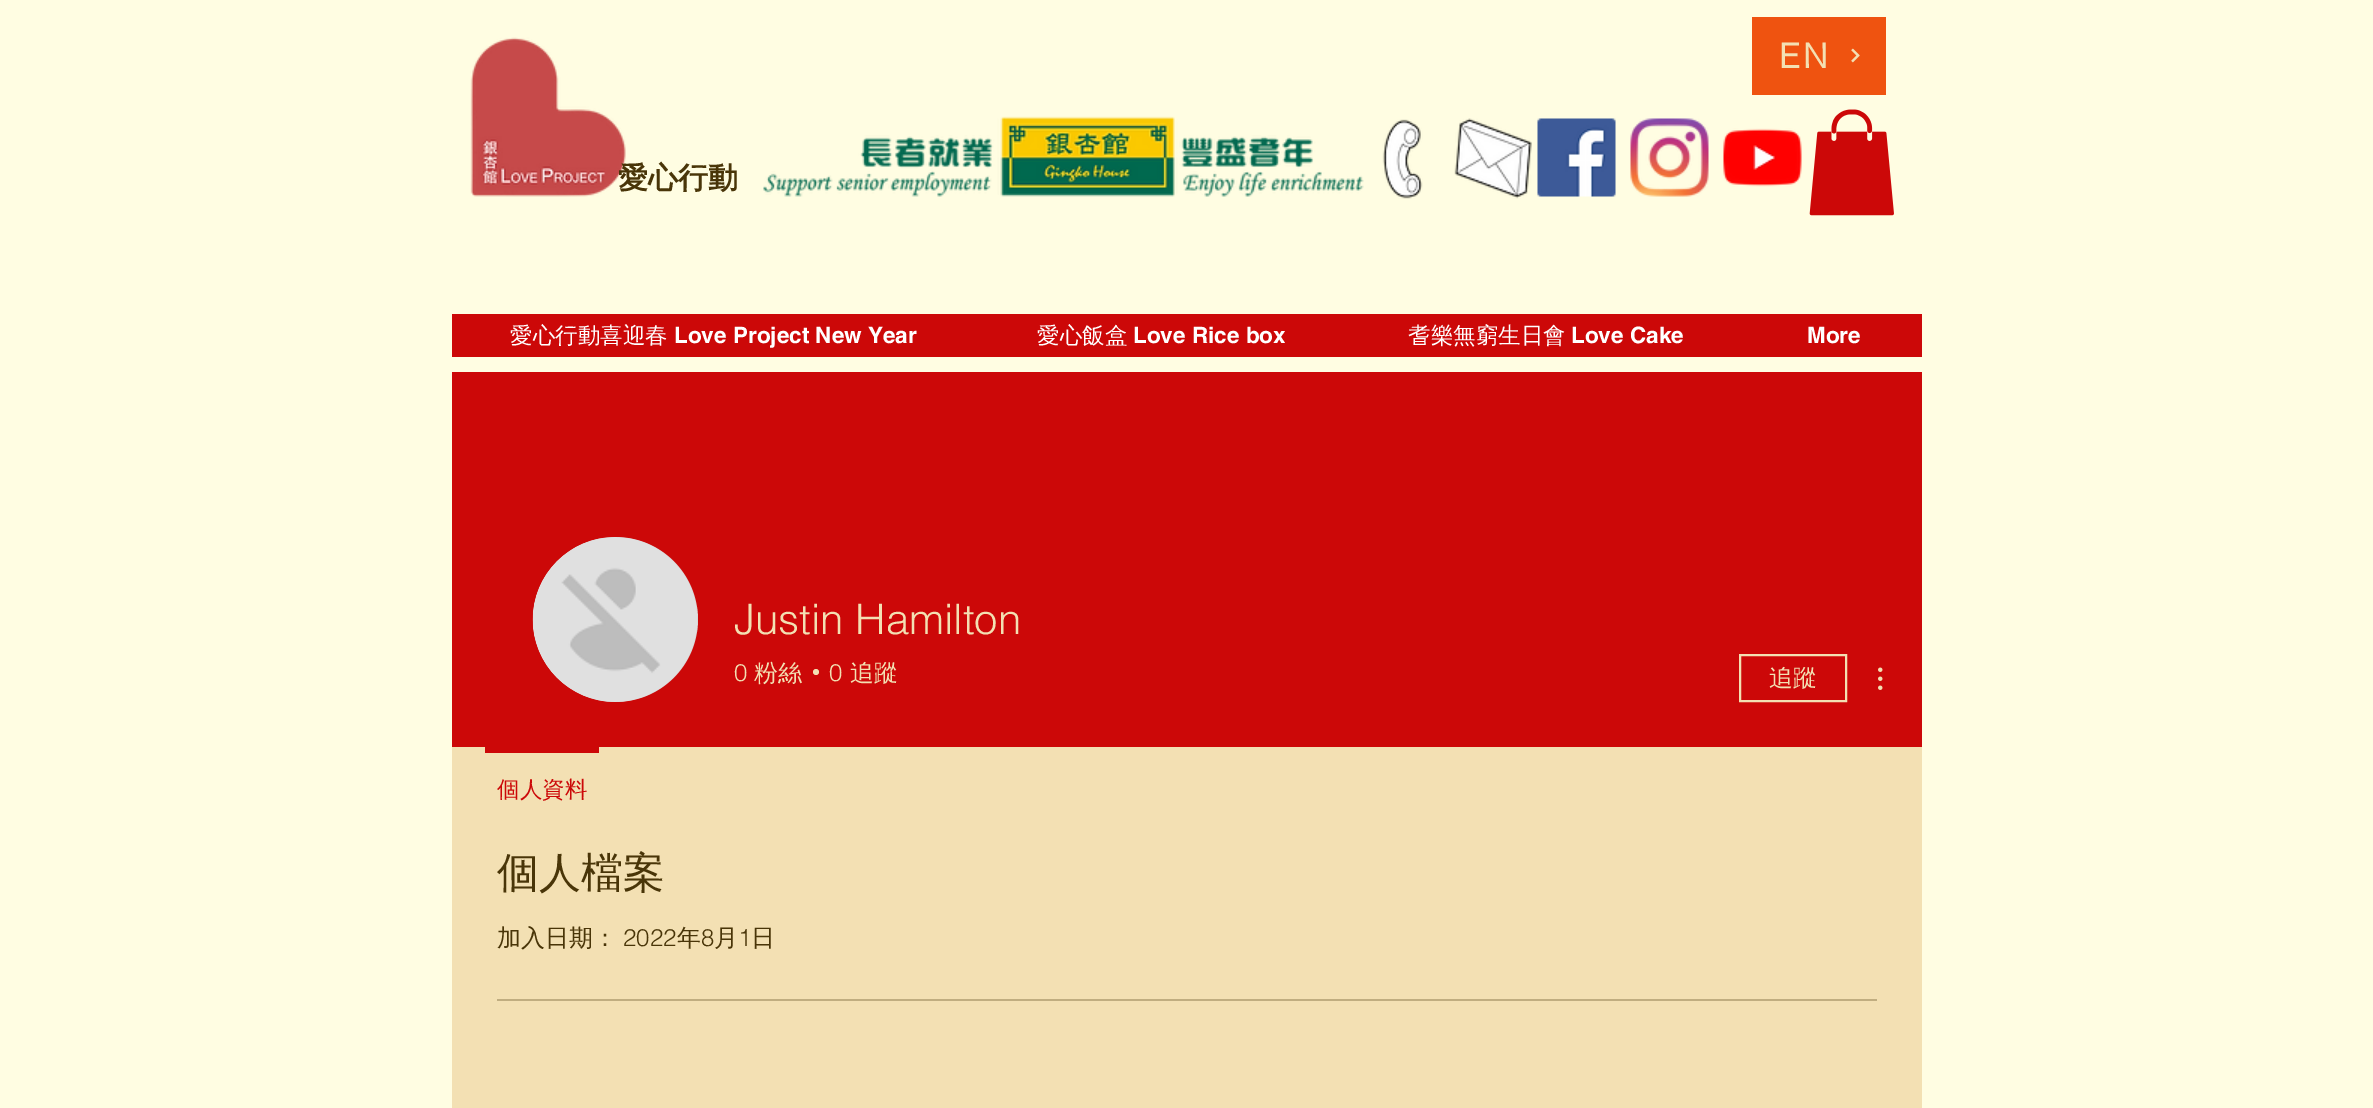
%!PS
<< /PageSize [2373 1108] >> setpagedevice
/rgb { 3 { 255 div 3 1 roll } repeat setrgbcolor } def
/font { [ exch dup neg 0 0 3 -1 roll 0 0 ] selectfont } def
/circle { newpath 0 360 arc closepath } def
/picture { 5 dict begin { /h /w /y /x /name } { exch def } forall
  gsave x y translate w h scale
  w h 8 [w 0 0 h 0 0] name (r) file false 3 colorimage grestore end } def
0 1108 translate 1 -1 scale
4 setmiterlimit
255 253 226 rgb
0 0 2373 1108 rectfill
239 83 16 rgb
1752 17 134 78 rectfill
(img/1.rgb) 1851 48 9 15 picture
(img/2.rgb) 470 37 156 160 picture
(img/3.rgb) 763 116 601 81 picture
(img/4.rgb) 1382 119 41 80 picture
(img/5.rgb) 1454 118 78 81 picture
(img/6.rgb) 1537 118 79 79 picture
(img/7.rgb) 1630 118 79 79 picture
(img/8.rgb) 1723 128 79 59 picture
(img/9.rgb) 1809 109 85 107 picture
204 8 8 rgb
452 314 1470 43 rectfill
452 372 1470 375 rectfill
216 216 216 rgb
615.5 619.5 82.5 circle fill
(img/10.rgb) 532 537 165 165 picture
243 224 179 rgb
816 672 3 circle fill
2 setlinewidth
1740 655 106 46 rectstroke
(img/11.rgb) 1878 667 5 23 picture
[
  [452 747 1470 361 243 224 179]
  [485 747 114 6 204 8 8]
  [497 999 1380 2 192 173 128]
] { aload pop rgb rectfill } forall
/helvetica-Bold 34 font
243 224 179 rgb
1779 68 moveto 3 0 (EN) ashow
/WenQuanYiZenHei-Bold 30 font
73 53 8 rgb
618 188 moveto (愛心行動) show
/WenQuanYiZenHei-Medium 22.5 font
255 255 255 rgb
510 343 moveto (愛心行動喜迎春) show
/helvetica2-Bold 22.5 font
674 343 moveto (Love Project New Year) show
/WenQuanYiZenHei-Medium 22.5 font
1037 343 moveto (愛心飯盒) show
/helvetica2-Bold 22.5 font
1133 343 moveto (Love Rice box) show
/WenQuanYiZenHei-Medium 22.5 font
1408 343 moveto (耆樂無窮生日會) show
/helvetica2-Bold 22.5 font
1571 343 moveto (Love Cake) show
1807 343 moveto (More) show
/helvetica-Light 42 font
243 224 179 rgb
734 634 moveto (Justin Hamilton) show
/helvetica-Light 24 font
734 681 moveto (0) show
/WenQuanYiZenHei-Medium 24 font
754 681 moveto (粉絲) show
/helvetica-Light 24 font
829 681 moveto (0) show
/WenQuanYiZenHei-Medium 24 font
850 681 moveto (追蹤) show
1769 686 moveto (追蹤) show
/WenQuanYiZenHei-Medium 22.5 font
204 8 8 rgb
497 797 moveto (個人資料) show
/WenQuanYiZenHei-Medium 42 font
73 53 8 rgb
497 887 moveto (個人檔案) show
/WenQuanYiZenHei-Medium 24 font
497 946 moveto (加入日期：) show
/helvetica-Light 24 font
623 946 moveto (2022) show
/WenQuanYiZenHei-Medium 24 font
677 946 moveto (年) show
/helvetica-Light 24 font
701 946 moveto (8) show
/WenQuanYiZenHei-Medium 24 font
714 946 moveto (月) show
/helvetica-Light 24 font
738 946 moveto (1) show
/WenQuanYiZenHei-Medium 24 font
751 946 moveto (日) show
showpage
